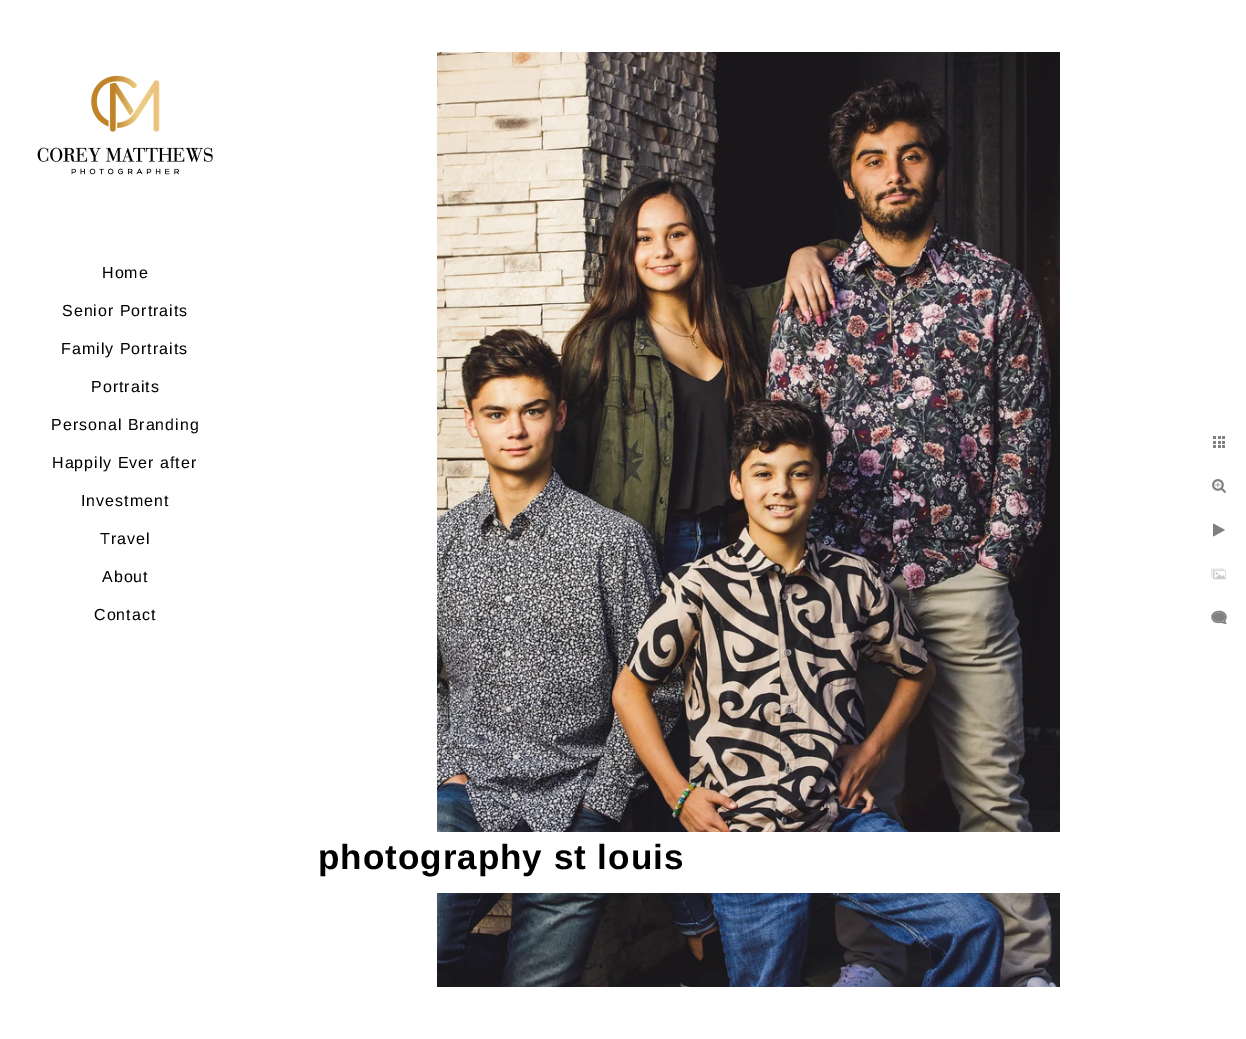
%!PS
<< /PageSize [1246 1039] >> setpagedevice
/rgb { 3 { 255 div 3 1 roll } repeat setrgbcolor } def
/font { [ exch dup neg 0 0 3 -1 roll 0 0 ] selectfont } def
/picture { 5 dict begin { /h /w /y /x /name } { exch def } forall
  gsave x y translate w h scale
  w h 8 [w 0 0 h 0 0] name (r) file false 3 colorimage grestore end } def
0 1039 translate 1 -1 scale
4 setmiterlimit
255 255 255 rgb
0 0 1246 1039 rectfill
(img/1.rgb) 37 75 176 100 picture
(img/2.rgb) 437 52 623 935 picture
(img/3.rgb) 1213 436 12 12 picture
(img/4.rgb) 1212 479 14 14 picture
(img/5.rgb) 1213 523 12 14 picture
(img/6.rgb) 1211 568 15 12 picture
(img/7.rgb) 1211 610 16 15 picture
437 832 623 61 rectfill
/LiberationSans-Regular 16 font
0 0 0 rgb
102 278 moveto 1 0 (Home) ashow
62 316 moveto 1 0 (Senior Portraits) ashow
61 354 moveto 1 0 (Family Portraits) ashow
91 392 moveto 1 0 (Portraits) ashow
51 430 moveto 1 0 (Personal Branding) ashow
52 468 moveto 1 0 (Happily Ever after) ashow
81 506 moveto 1 0 (Investment) ashow
100 544 moveto 1 0 (Travel) ashow
102 582 moveto 1 0 (About) ashow
94 620 moveto 1 0 (Contact) ashow
/LiberationSans-Bold 35 font
318 869 moveto 1 0 (photography st louis) ashow
showpage
